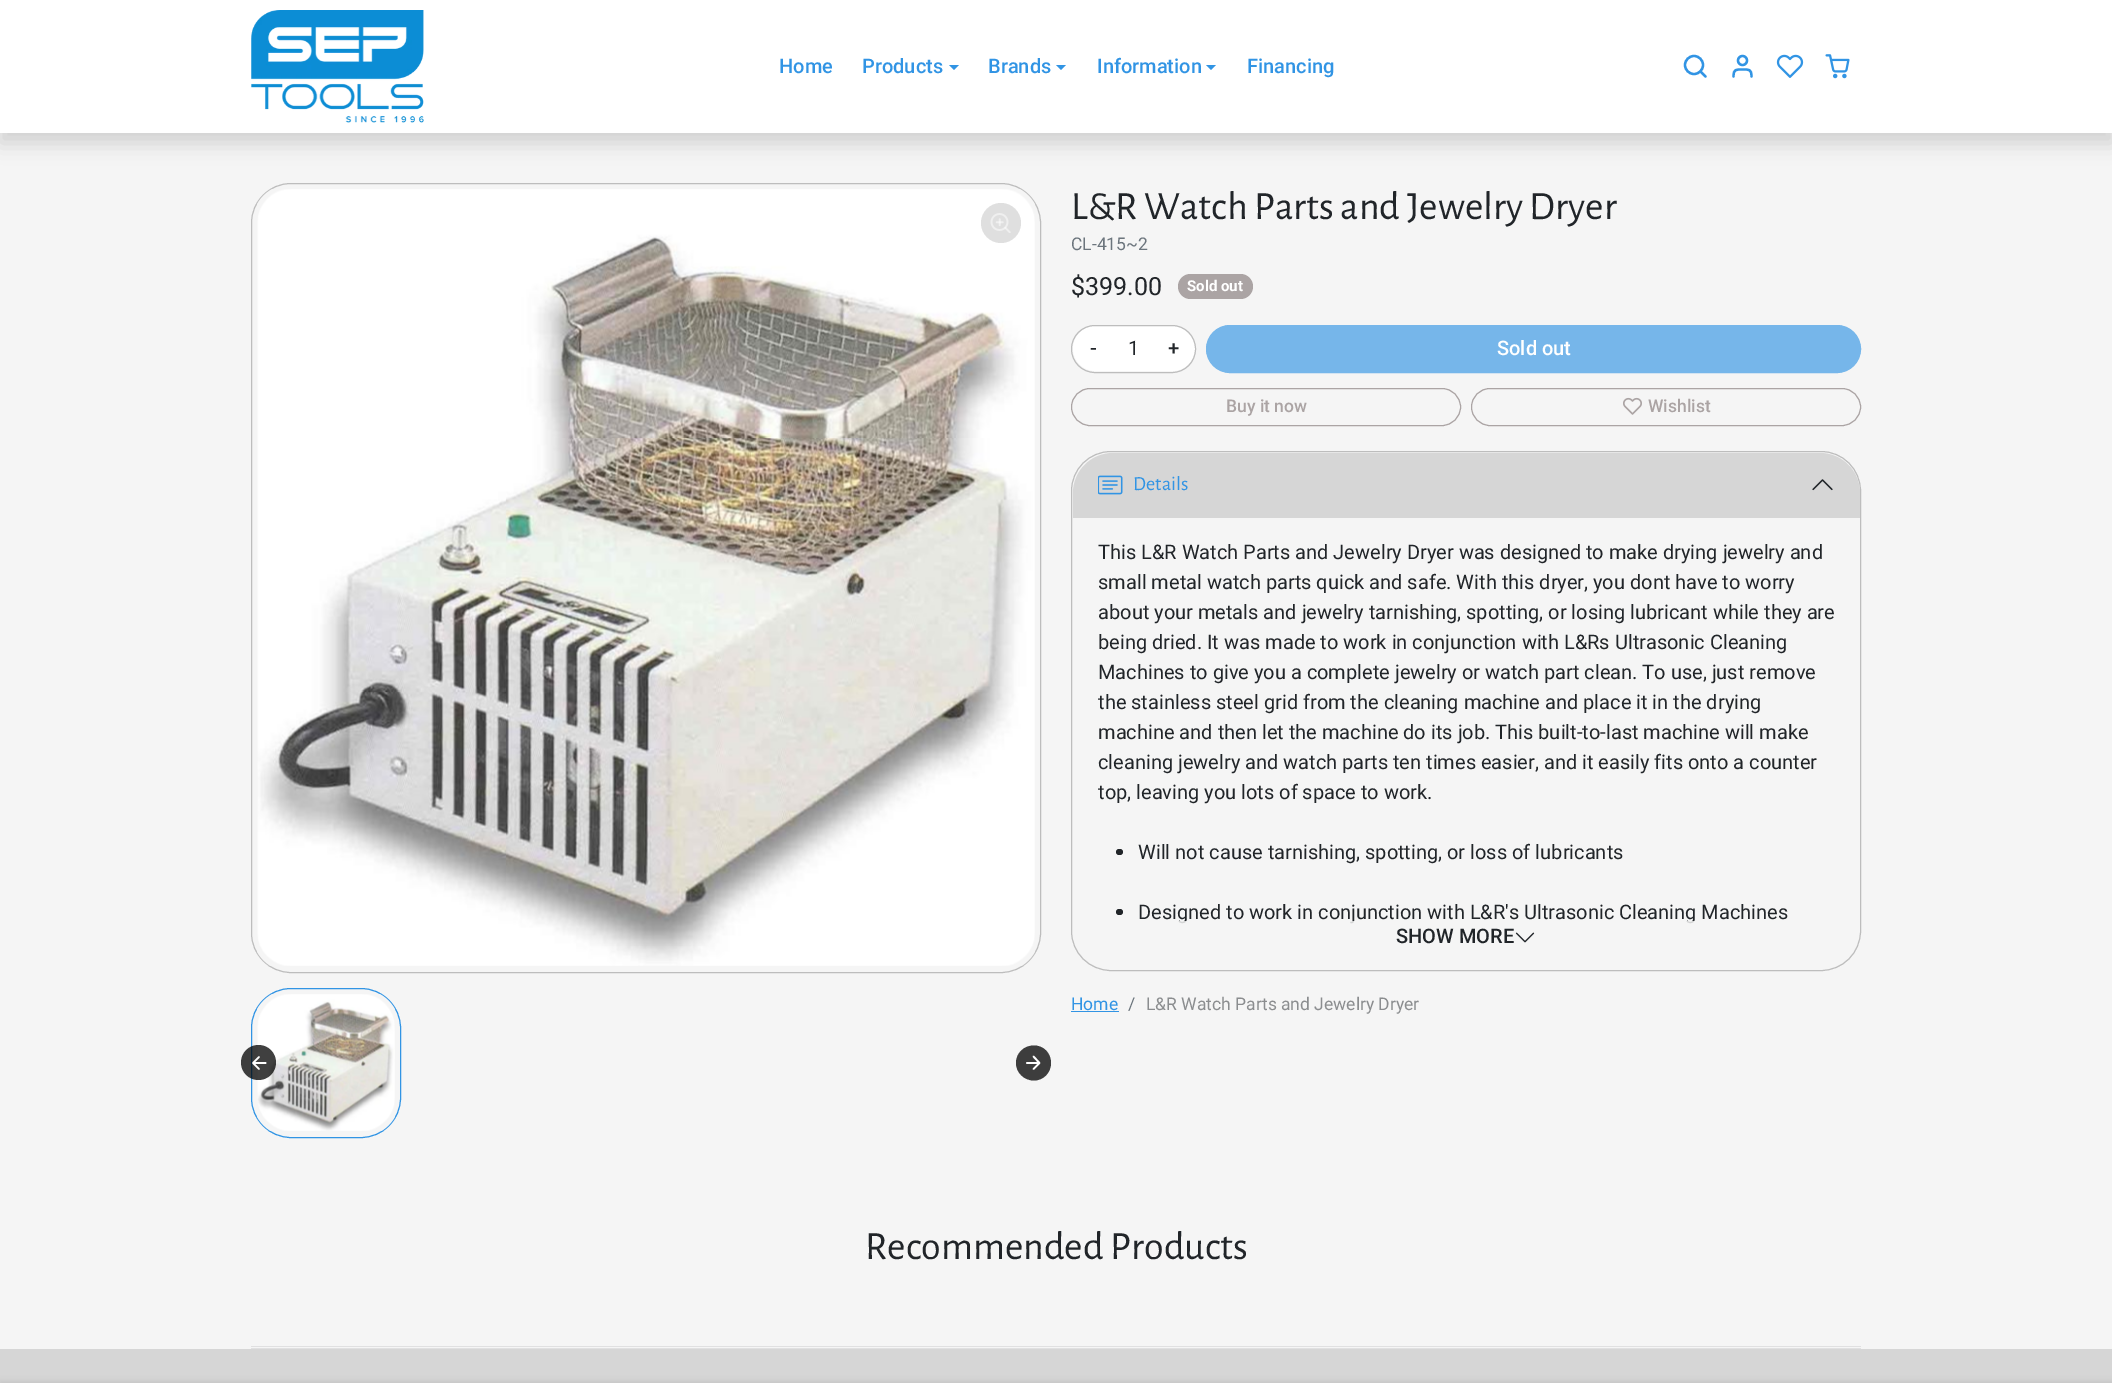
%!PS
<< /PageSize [2112 1383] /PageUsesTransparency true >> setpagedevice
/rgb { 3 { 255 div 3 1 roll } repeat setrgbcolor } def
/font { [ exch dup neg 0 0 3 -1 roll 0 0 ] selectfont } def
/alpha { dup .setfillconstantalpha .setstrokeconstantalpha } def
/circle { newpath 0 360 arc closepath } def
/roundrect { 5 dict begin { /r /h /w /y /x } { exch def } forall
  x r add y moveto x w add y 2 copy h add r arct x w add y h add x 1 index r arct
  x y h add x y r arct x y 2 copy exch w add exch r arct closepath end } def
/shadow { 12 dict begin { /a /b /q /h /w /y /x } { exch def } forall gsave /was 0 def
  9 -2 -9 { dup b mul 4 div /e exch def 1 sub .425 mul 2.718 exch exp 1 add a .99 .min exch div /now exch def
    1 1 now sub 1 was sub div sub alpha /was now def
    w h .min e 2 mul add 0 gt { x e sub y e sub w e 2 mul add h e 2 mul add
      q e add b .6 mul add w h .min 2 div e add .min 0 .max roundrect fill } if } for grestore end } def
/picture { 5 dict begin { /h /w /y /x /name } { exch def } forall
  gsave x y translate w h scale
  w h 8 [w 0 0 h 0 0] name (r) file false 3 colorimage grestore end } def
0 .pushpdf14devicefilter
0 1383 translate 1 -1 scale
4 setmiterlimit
245 245 245 rgb
0 0 2112 1383 rectfill
0 0 0 rgb
0 10 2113 133 0 10 0.15 shadow
255 255 255 rgb
0 0 2112 133 rectfill
(img/1.rgb) 251 10 173 113 picture
49 148 228 rgb
949 65 moveto 959 65 lineto 954 70 lineto closepath fill
1056 65 moveto 1066 65 lineto 1061 70 lineto closepath fill
1206 65 moveto 1216 65 lineto 1211 70 lineto closepath fill
2.3 setlinewidth
1694 65 9 circle stroke
1 setlinecap
1 setlinejoin
1705.5 76.5 moveto 1700.5 71.5 lineto 1751.5 76.5 moveto 1751.5 69 1749 69.5 1742.5 69.5 curveto 1736 69.5 1733.5 69 1733.5 76.5 curveto stroke
0 setlinecap
0 setlinejoin
1742.5 60.5 4.5 circle stroke
(img/2.rgb) 1776 54 28 24 picture
(img/3.rgb) 1825 54 25 25 picture
189 189 189 rgb
1 setlinewidth
251.5 183.5 789 789 39.5 roundrect stroke
(img/4.rgb) 257 189 778 777 picture
223 223 223 rgb
1001 223 20 circle fill
(img/5.rgb) 990 213 21 20 picture
49 148 228 rgb
251.5 988.5 149 149 39.5 roundrect stroke
(img/6.rgb) 257 994 138 137 picture
0.75 alpha
0 0 0 rgb
258.5 1062.5 17.5 circle fill
1 alpha
255 255 255 rgb
1.7 setlinewidth
1 setlinecap
1 setlinejoin
265.5 1063 moveto 254 1063 lineto 259 1057 moveto 253 1063 lineto 259 1069 lineto stroke
61 61 61 rgb
1034 1080.5 moveto 1024 1080.5 1016 1072.5 1016 1063 curveto 1016 1053 1024 1045.5 1034 1045.5 curveto 1043.5 1045.5 1051 1053 1051 1063 curveto 1051 1072.5 1043.5 1080.5 1034 1080.5 curveto closepath fill
255 255 255 rgb
1027 1063 moveto 1038.5 1063 lineto 1033.5 1069 moveto 1039.5 1063 lineto 1033.5 1056.5 lineto stroke
171 164 164 rgb
1178 274 75 25 12.5 roundrect fill
255 255 255 rgb
1073 326 122 45 22.5 roundrect fill
189 189 189 rgb
1 setlinewidth
0 setlinecap
0 setlinejoin
1071.5 325.5 124 47 23.5 roundrect stroke
118 182 234 rgb
1206.5 325.5 654 47 23.5 roundrect gsave fill grestore
stroke
171 164 164 rgb
1071.5 388.5 389 37 18.5 roundrect stroke
1471.5 388.5 389 37 18.5 roundrect stroke
(img/7.rgb) 1623 397 19 18 picture
189 189 189 rgb
1071.5 451.5 789 519 39.5 roundrect stroke
214 214 214 rgb
1113 453 moveto 1820 453 lineto 1842 453 1860 471 1860 493 curveto 1860 518 lineto 1073 518 lineto 1073 493 lineto 1073 471 1091 453 1113 453 curveto closepath fill
(img/8.rgb) 1098 475 25 20 picture
(img/9.rgb) 1812 479 21 12 picture
33 37 41 rgb
1116 849 7 6 3 roundrect fill
1116 909 7 6 3 roundrect fill
(img/10.rgb) 1515 932 20 11 picture
[
  [1071 1011 48 1 49 148 228]
  [251 1346 1610 1 224 224 225]
  [251 1348 1610 1 224 224 225]
  [0 1349 2112 34 214 214 214]
] { aload pop rgb rectfill } forall
0 0 0 rgb
0 1381 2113 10 0 2.5 0.07 shadow
/Roboto-Medium 20 font
49 148 228 rgb
[
  [(Home) 779 73]
  [(Products) 862 73]
  [(Brands) 988 73]
  [(Information) 1097 73]
  [(Financing) 1247 73]
] { aload pop moveto show } forall
/AlegreyaSans-Regular 40 font
33 37 41 rgb
1071 219 moveto (L&R Watch Parts and Jewelry Dryer) show
/Roboto-Regular 17.5 font
108 117 125 rgb
1071 250 moveto (CL-415~2) show
/Roboto-Regular 25 font
33 37 41 rgb
1071 295 moveto ($399.00) show
/Roboto-Bold 15 font
255 255 255 rgb
1187 291 moveto (Sold out) show
/Roboto-Medium 20 font
33 37 41 rgb
1090 355 moveto (-) show
/Roboto-Regular 20 font
1128 355 moveto (1) show
/Roboto-Medium 20 font
1168 355 moveto (+) show
255 255 255 rgb
1497 355 moveto (Sold out) show
/Roboto-Medium 17.5 font
171 164 164 rgb
1226 412 moveto (Buy it now) show
1648 412 moveto (Wishlist) show
/AlegreyaSans-Regular 20 font
49 148 228 rgb
1133 490 moveto (Details) show
/Roboto-Regular 20 font
33 37 41 rgb
[
  [(This L&R Watch Parts and Jewelry Dryer was designed to make drying jewelry and) 1098 559]
  [(small metal watch parts quick and safe. With this dryer, you dont have to worry) 1098 589]
  [(about your metals and jewelry tarnishing, spotting, or losing lubricant while they are) 1098 619]
  [(being dried. It was made to work in conjunction with L&Rs Ultrasonic Cleaning) 1098 649]
  [(Machines to give you a complete jewelry or watch part clean. To use, just remove) 1098 679]
  [(the stainless steel grid from the cleaning machine and place it in the drying) 1098 709]
  [(machine and then let the machine do its job. This built-to-last machine will make) 1098 739]
  [(cleaning jewelry and watch parts ten times easier, and it easily fits onto a counter) 1098 769]
  [(top, leaving you lots of space to work.) 1098 799]
  [(Will not cause tarnishing, spotting, or loss of lubricants) 1138 859]
  [(Designed to work in conjunction with L&R's Ultrasonic Cleaning Machines) 1138 919]
] { aload pop moveto show } forall
0.84 alpha
245 245 245 rgb
1178 921 517 3 rectfill
/Roboto-Medium 20 font
1 alpha
33 37 41 rgb
1396 943 moveto (SHOW MORE) show
/Roboto-Regular 17.5 font
49 148 228 rgb
1071 1010 moveto (Home) show
108 117 125 rgb
1128 1010 moveto (/) show
139 141 143 rgb
1146 1010 moveto (L&R Watch Parts and Jewelry Dryer) show
/AlegreyaSans-Regular 40 font
33 37 41 rgb
865 1259 moveto (Recommended Products) show
.poppdf14devicefilter showpage
